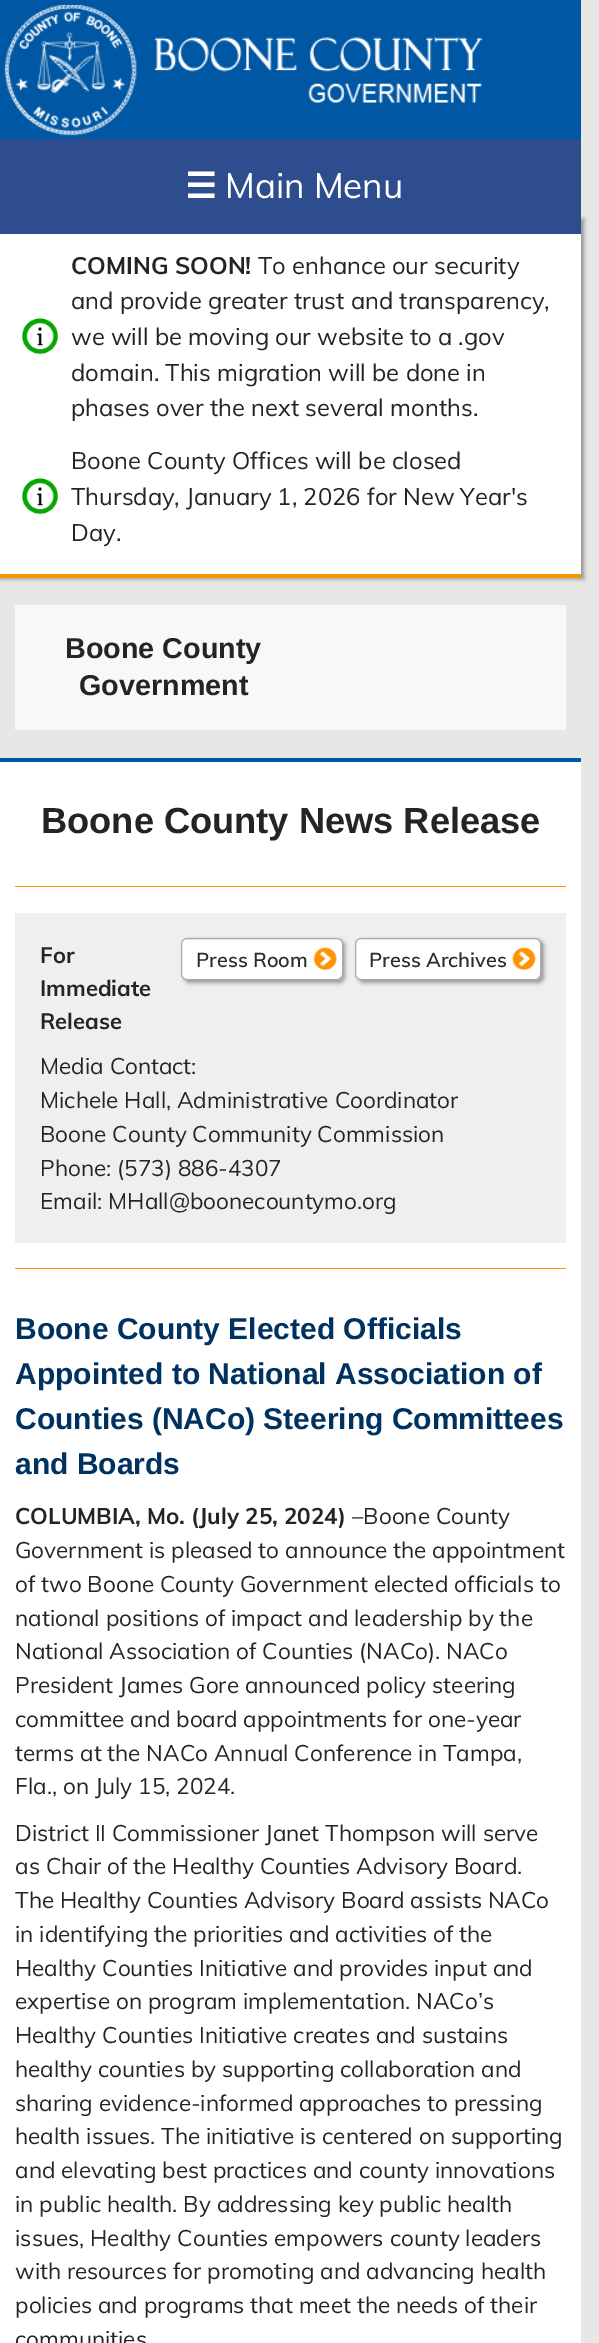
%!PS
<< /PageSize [599 2343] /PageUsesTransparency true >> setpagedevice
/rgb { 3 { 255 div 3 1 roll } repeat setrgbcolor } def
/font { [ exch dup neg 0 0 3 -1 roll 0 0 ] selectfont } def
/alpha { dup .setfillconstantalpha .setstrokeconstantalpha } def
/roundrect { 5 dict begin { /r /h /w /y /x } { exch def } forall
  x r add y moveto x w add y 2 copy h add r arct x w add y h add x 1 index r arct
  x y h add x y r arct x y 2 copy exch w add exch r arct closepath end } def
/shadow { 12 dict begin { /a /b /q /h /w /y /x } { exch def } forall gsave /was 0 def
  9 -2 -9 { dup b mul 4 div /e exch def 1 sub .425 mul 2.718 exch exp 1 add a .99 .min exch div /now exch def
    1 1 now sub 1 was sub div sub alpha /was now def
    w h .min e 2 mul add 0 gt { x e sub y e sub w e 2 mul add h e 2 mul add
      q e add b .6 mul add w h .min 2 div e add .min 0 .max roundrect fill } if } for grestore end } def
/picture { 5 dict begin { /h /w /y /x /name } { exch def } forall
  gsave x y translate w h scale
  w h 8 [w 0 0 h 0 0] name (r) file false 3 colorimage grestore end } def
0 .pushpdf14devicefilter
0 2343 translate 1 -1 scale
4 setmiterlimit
231 232 229 rgb
0 0 599 2343 rectfill
0 87 163 rgb
0 0 581 139 rectfill
(img/1.rgb) 4 4 479 132 picture
0 0 0 rgb
0 219 584 360 0 2 0.35 shadow
[
  [0 139 581 95 46 77 142]
  [0 234 581 340 255 255 255]
  [0 574 581 4 255 146 0]
] { aload pop rgb rectfill } forall
(img/2.rgb) 22 318 36 37 picture
(img/2.rgb) 22 478 36 37 picture
[
  [15 605 551 125 248 248 247]
  [0 762 581 1581 255 255 255]
  [0 758 581 4 0 87 163]
  [15 886 551 1 255 146 0]
  [15 913 551 330 239 239 239]
] { aload pop rgb rectfill } forall
0 0 0 rgb
184 940 161 43 6 2 0.35 shadow
255 255 255 rgb
181 938 162 42 6 roundrect fill
(img/3.rgb) 313 947 24 23 picture
169 169 169 rgb
181.5 938.5 161 41 5.5 roundrect stroke
0 0 0 rgb
358 940 186 43 6 2 0.35 shadow
255 255 255 rgb
355 938 186 42 6 roundrect fill
(img/4.rgb) 512 947 24 23 picture
169 169 169 rgb
355.5 938.5 185 41 5.5 roundrect stroke
255 146 0 rgb
15 1268 551 1 rectfill
/DejaVuSans-Bold 35 font
255 255 255 rgb
185 198 moveto (☰) show
/Muli-Regular 35 font
225 198 moveto (Main Menu) show
/Muli-Bold 23.75 font
36 36 36 rgb
71 274 moveto (COMING SOON!) show
/Muli-Regular 23.75 font
[
  [(To enhance our security) 258 274]
  [(and provide greater trust and transparency,) 71 309]
  [(we will be moving our website to a .gov) 71 345]
  [(domain. This migration will be done in) 71 381]
  [(phases over the next several months.) 71 416]
  [(Boone County Offices will be closed) 71 469]
  [(Thursday, January 1, 2026 for New Year's) 71 505]
  [(Day.) 71 541]
] { aload pop moveto show } forall
/LiberationSans-Bold 28.75 font
65 658 moveto (Boone County) show
79 695 moveto (Government) show
/LiberationSans-Bold 36.25 font
41 833 moveto (Boone County News Release) show
/Muli-Bold 22 font
[
  [(For) 40 963]
  [(Immediate) 40 996]
  [(Release) 40 1029]
] { aload pop moveto show } forall
/Muli-SemiBold 20 font
43 43 43 rgb
196 967 moveto (Press Room) show
369 967 moveto (Press Archives) show
/Muli-Regular 22.5 font
36 36 36 rgb
[
  [(Media Contact:) 40 1074]
  [(Michele Hall, Administrative Coordinator) 40 1108]
  [(Boone County Community Commission) 40 1142]
  [(Phone: \(573\) 886-4307) 40 1176]
  [(Email: MHall@boonecountymo.org) 40 1209]
] { aload pop moveto show } forall
/LiberationSans-Bold 30 font
0 50 97 rgb
[
  [(Boone County Elected Officials) 15 1339]
  [(Appointed to National Association of) 15 1384]
  [(Counties \(NACo\) Steering Committees) 15 1429]
  [(and Boards) 15 1474]
] { aload pop moveto show } forall
/Muli-Bold 22.5 font
36 36 36 rgb
15 1524 moveto (COLUMBIA, Mo. \(July 25, 2024\)) show
/Muli-Regular 22.5 font
[
  [(–Boone County) 352 1524]
  [(Government is pleased to announce the appointment) 15 1558]
  [(of two Boone County Government elected officials to) 15 1592]
  [(national positions of impact and leadership by the) 15 1626]
  [(National Association of Counties \(NACo\). NACo) 15 1659]
  [(President James Gore announced policy steering) 15 1693]
  [(committee and board appointments for one-year) 15 1727]
  [(terms at the NACo Annual Conference in Tampa,) 15 1761]
  [(Fla., on July 15, 2024.) 15 1794]
  [(District II Commissioner Janet Thompson will serve) 15 1841]
  [(as Chair of the Healthy Counties Advisory Board.) 15 1874]
  [(The Healthy Counties Advisory Board assists NACo) 15 1908]
  [(in identifying the priorities and activities of the) 15 1942]
  [(Healthy Counties Initiative and provides input and) 15 1976]
  [(expertise on program implementation. NACo’s) 15 2009]
  [(Healthy Counties Initiative creates and sustains) 15 2043]
  [(healthy counties by supporting collaboration and) 15 2077]
  [(sharing evidence-informed approaches to pressing) 15 2111]
  [(health issues. The initiative is centered on supporting) 15 2144]
  [(and elevating best practices and county innovations) 15 2178]
  [(in public health. By addressing key public health) 15 2212]
  [(issues, Healthy Counties empowers county leaders) 15 2246]
  [(with resources for promoting and advancing health) 15 2279]
  [(policies and programs that meet the needs of their) 15 2313]
  [(communities) 15 2347]
] { aload pop moveto show } forall
.poppdf14devicefilter showpage
